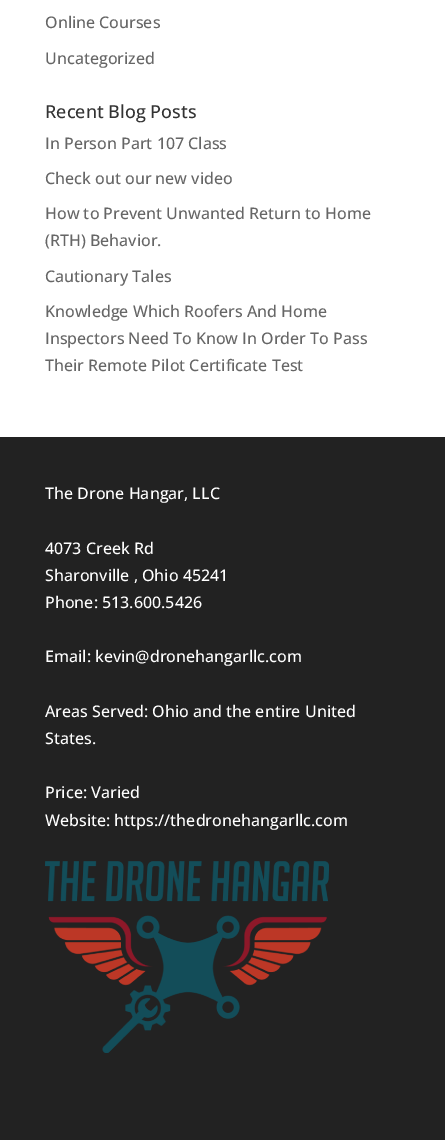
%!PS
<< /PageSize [445 1140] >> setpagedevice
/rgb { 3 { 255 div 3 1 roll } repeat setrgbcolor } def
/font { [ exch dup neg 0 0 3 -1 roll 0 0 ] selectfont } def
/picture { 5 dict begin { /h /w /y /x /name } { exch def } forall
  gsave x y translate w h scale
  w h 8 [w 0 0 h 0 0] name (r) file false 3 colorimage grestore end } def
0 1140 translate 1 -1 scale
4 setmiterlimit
255 255 255 rgb
0 0 445 1140 rectfill
34 34 34 rgb
0 437 445 703 rectfill
(img/1.rgb) 45 861 284 192 picture
/OpenSans-Medium 16 font
102 102 102 rgb
45 28 moveto (Online Courses) show
45 64 moveto (Uncategorized) show
/OpenSans-Medium 18 font
51 51 51 rgb
45 118 moveto (Recent Blog Posts) show
/OpenSans-Medium 16 font
102 102 102 rgb
[
  [(In Person Part 107 Class) 45 149]
  [(Check out our new video) 45 184]
  [(How to Prevent Unwanted Return to Home) 45 219]
  [(\(RTH\) Behavior.) 45 246]
  [(Cautionary Tales) 45 282]
  [(Knowledge Which Roofers And Home) 45 317]
  [(Inspectors Need To Know In Order To Pass) 45 344]
  [(Their Remote Pilot Certificate Test) 45 371]
] { aload pop moveto show } forall
255 255 255 rgb
[
  [(The Drone Hangar, LLC) 45 499]
  [(4073 Creek Rd) 45 554]
  [(Sharonville , Ohio 45241) 45 581]
  [(Phone: 513.600.5426) 45 608]
  [(Email: kevin@dronehangarllc.com) 45 662]
  [(Areas Served: Ohio and the entire United) 45 717]
  [(States.) 45 744]
  [(Price: Varied) 45 798]
  [(Website: https://thedronehangarllc.com) 45 826]
] { aload pop moveto show } forall
showpage
